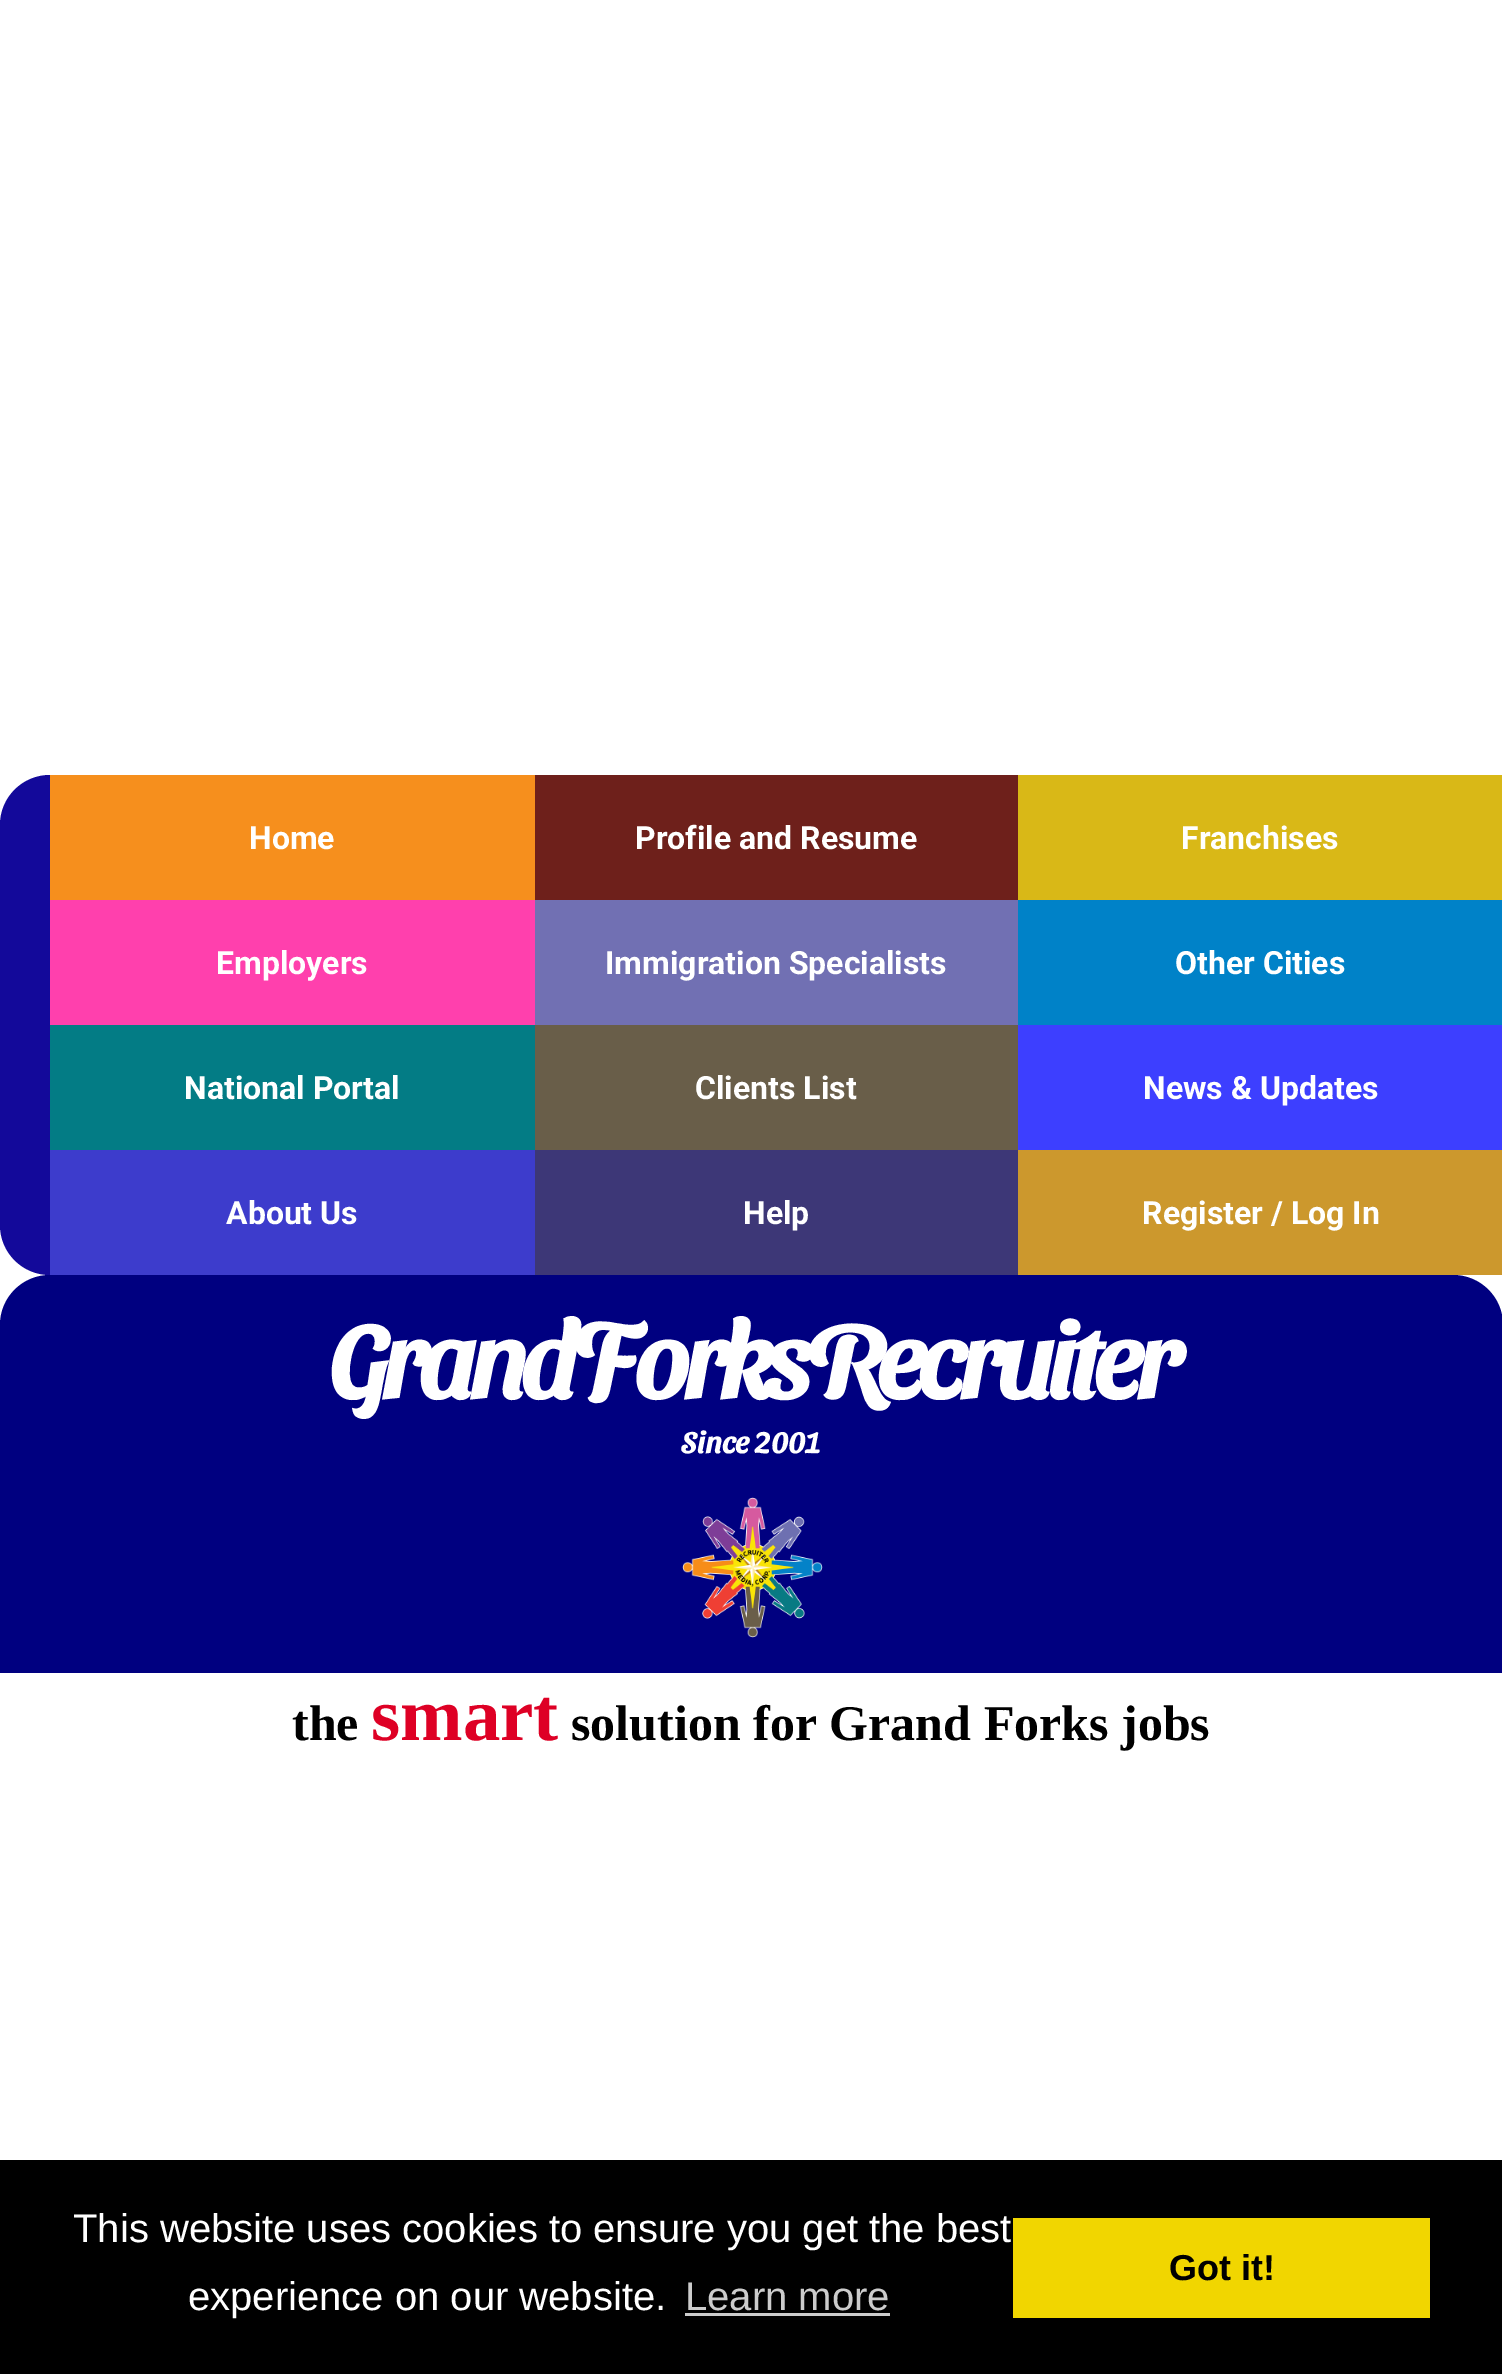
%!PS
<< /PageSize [1502 2374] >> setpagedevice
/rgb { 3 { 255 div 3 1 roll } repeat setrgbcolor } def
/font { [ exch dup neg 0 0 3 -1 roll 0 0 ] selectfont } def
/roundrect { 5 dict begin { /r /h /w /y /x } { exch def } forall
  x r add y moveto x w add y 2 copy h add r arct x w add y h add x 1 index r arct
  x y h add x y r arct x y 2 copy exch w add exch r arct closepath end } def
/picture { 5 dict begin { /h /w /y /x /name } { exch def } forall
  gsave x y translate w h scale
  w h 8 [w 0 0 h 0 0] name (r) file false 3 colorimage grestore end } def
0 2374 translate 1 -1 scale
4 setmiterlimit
255 255 255 rgb
0 0 1502 2374 rectfill
19 9 154 rgb
0 775 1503 500 50 roundrect fill
[
  [50 775 485 125 246 143 29]
  [535 775 483 125 110 32 27]
  [1018 775 484 125 217 184 23]
  [50 900 485 125 255 64 173]
  [535 900 483 125 113 112 179]
  [1018 900 484 125 0 130 200]
  [50 1025 485 125 3 124 133]
  [535 1025 483 125 105 94 73]
  [1018 1025 484 125 61 63 255]
  [50 1150 485 125 61 60 204]
  [535 1150 483 125 61 55 119]
  [1018 1150 484 125 204 152 45]
] { aload pop rgb rectfill } forall
0 0 128 rgb
0 1275 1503 483 50 roundrect fill
(img/1.rgb) 682 1497 141 141 picture
[
  [0 1673 1502 85 255 255 255]
  [0 2160 1502 214 0 0 0]
  [685 2313 205 3 204 204 204]
  [1013 2218 417 100 241 214 0]
] { aload pop rgb rectfill } forall
/Roboto-Bold 32 font
255 255 255 rgb
[
  [(Home) 249 849]
  [(Profile and Resume) 635 849]
  [(Franchises) 1181 849]
  [(Employers) 216 974]
  [(Immigration Specialists) 605 974]
  [(Other Cities) 1175 974]
  [(National Portal) 184 1099]
  [(Clients List) 695 1099]
  [(News & Updates) 1143 1099]
  [(About Us) 226 1224]
  [(Help) 743 1224]
  [(Register / Log In) 1142 1224]
] { aload pop moveto show } forall
/SansitaSwashed-Bold 105 font
329 1398 moveto -7.5 0 (GrandForksRecruiter) ashow
/SansitaSwashed-Bold 30 font
681 1453 moveto (Since 2001) show
/LiberationSerif-Bold 50 font
0 0 0 rgb
292 1740 moveto (the) show
/LiberationSerif-Bold 75 font
222 0 37 rgb
371 1740 moveto (smart) show
/LiberationSerif-Bold 50 font
0 0 0 rgb
571 1740 moveto (solution for Grand Forks jobs) show
/LiberationSans-Regular 40 font
255 255 255 rgb
73 2242 moveto (This website uses cookies to ensure you get the best) show
188 2310 moveto (experience on our website.) show
204 204 204 rgb
685 2310 moveto (Learn more) show
/LiberationSans-Bold 36 font
0 0 0 rgb
1169 2280 moveto (Got it!) show
showpage
